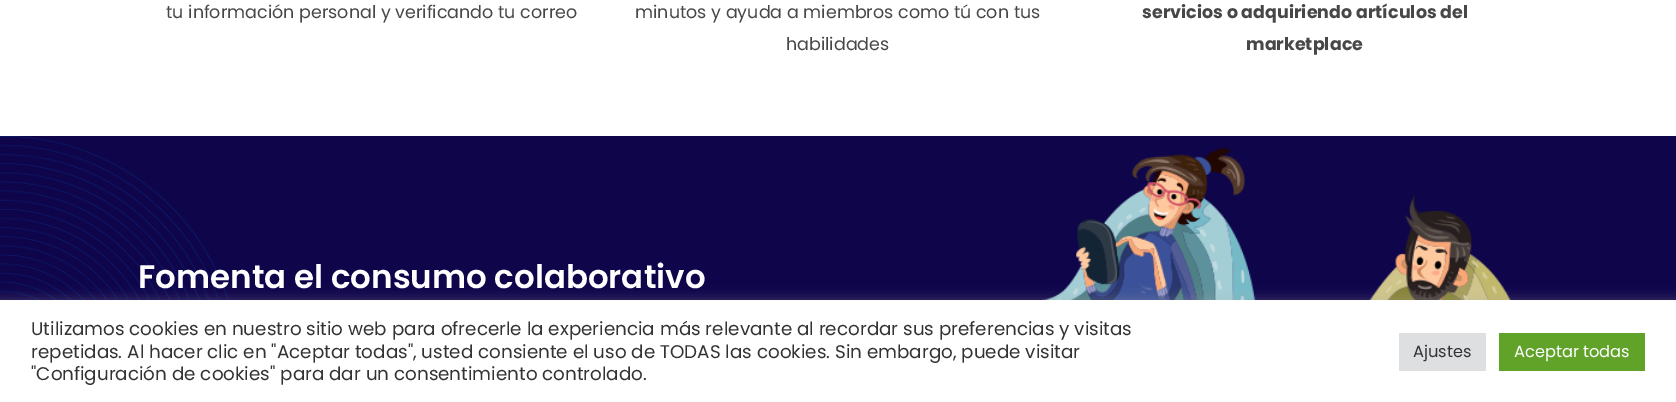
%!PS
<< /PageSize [1676 402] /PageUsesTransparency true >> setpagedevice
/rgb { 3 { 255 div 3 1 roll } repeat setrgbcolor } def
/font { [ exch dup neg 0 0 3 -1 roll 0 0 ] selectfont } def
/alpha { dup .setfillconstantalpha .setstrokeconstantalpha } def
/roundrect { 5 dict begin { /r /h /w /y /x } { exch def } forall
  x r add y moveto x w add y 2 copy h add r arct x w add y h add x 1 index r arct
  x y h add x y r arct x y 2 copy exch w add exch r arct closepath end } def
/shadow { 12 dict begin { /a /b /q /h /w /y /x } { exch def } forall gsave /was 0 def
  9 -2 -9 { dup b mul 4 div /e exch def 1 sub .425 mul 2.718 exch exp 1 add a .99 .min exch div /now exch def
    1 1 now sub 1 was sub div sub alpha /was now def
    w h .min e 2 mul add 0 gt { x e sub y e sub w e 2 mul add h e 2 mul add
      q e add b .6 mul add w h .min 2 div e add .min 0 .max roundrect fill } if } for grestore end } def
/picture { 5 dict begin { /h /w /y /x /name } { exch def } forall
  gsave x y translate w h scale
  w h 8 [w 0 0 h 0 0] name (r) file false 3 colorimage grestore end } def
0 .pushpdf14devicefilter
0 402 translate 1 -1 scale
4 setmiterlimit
255 255 255 rgb
0 0 1676 402 rectfill
15 5 75 rgb
0 136 1676 164 rectfill
(img/1.rgb) 0 136 229 164 picture
(img/2.rgb) 1042 148 469 152 picture
172 171 171 rgb
0 299 1676 102 0 6 0.3 shadow
[
  [0 300 1676 102 255 255 255]
  [1399 333 87 38 222 223 224]
  [1499 333 146 38 97 162 41]
] { aload pop rgb rectfill } forall
/Poppins-Regular 17.5 font
71 71 71 rgb
[
  [(tu información personal y verificando tu correo) 166 18]
  [(minutos y ayuda a miembros como tú con tus) 635 18]
  [(habilidades) 786 50]
] { aload pop moveto show } forall
/Poppins-Bold 17.5 font
1142 18 moveto (servicios o adquiriendo artículos del) show
1246 50 moveto (marketplace) show
/Poppins-SemiBold 32.5 font
255 255 255 rgb
138 288 moveto (Fomenta el consumo colaborativo) show
/Poppins-Regular 18.33 font
51 51 51 rgb
[
  [(Utilizamos cookies en nuestro sitio web para ofrecerle la experiencia más relevante al recordar sus preferencias y visitas) 31 335]
  [(repetidas. Al hacer clic en "Aceptar todas", usted consiente el uso de TODAS las cookies. Sin embargo, puede visitar) 31 358]
  [("Configuración de cookies" para dar un consentimiento controlado.) 31 380]
] { aload pop moveto show } forall
/Poppins-Regular 16.25 font
1413 357 moveto (Ajustes) show
255 255 255 rgb
1514 357 moveto (Aceptar todas) show
.poppdf14devicefilter showpage
